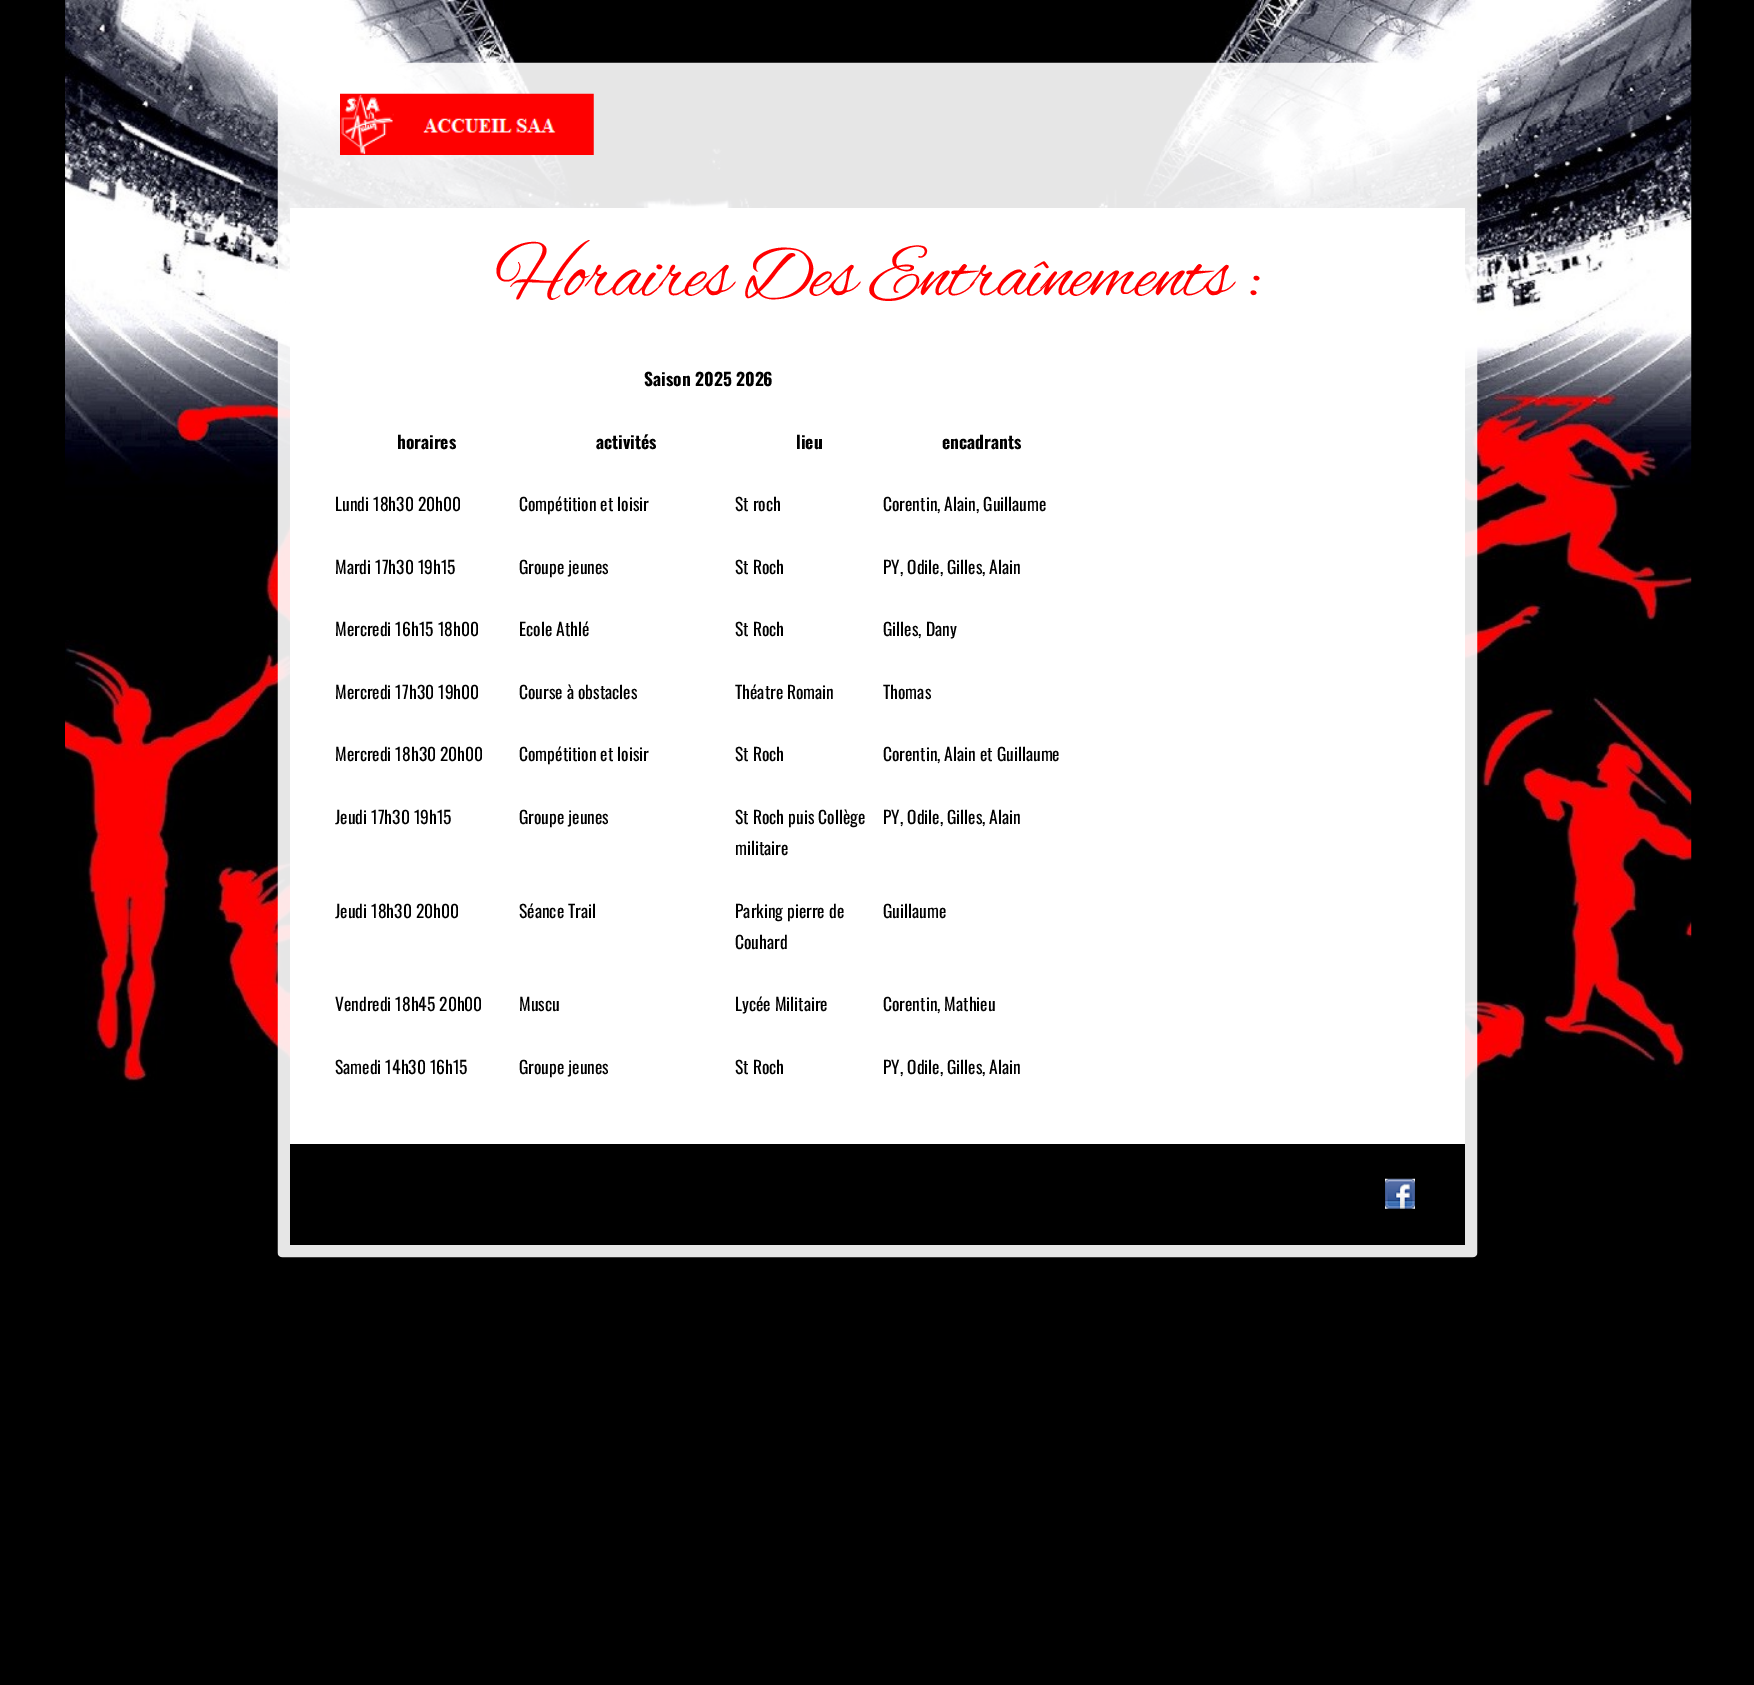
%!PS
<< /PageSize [1754 1685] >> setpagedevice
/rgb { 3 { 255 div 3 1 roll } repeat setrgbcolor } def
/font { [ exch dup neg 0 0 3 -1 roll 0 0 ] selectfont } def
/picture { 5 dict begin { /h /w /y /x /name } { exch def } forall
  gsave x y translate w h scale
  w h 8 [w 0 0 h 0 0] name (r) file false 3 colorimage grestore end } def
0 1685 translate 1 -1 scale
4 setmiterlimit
0 0 0 rgb
0 0 1754 1685 rectfill
(img/1.rgb) 65 0 1627 1110 picture
(img/2.rgb) 277 62 1201 1196 picture
(img/3.rgb) 340 93 254 62 picture
255 255 255 rgb
290 208 1175 936 rectfill
0 0 0 rgb
290 1144 1175 101 rectfill
(img/4.rgb) 1385 1178 30 31 picture
/AlexBrush-Regular 75 font
255 0 0 rgb
495 295 moveto -1.25 0 (Horaires Des Entraînements :) ashow
/Oswald-Bold 17.5 font
0 0 0 rgb
[
  [(Saison 2025 2026) 644 386]
  [(horaires) 397 449]
  [(activités) 596 449]
  [(lieu) 796 449]
  [(encadrants) 942 449]
] { aload pop moveto show } forall
/Oswald-Regular 17.5 font
[
  [(Lundi 18h30 20h00) 335 511]
  [(Compétition et loisir) 519 511]
  [(St roch) 735 511]
  [(Corentin, Alain, Guillaume) 883 511]
  [(Mardi 17h30 19h15) 335 574]
  [(Groupe jeunes) 519 574]
  [(St Roch) 735 574]
  [(PY, Odile, Gilles, Alain) 883 574]
  [(Mercredi 16h15 18h00) 335 636]
  [(Ecole Athlé) 519 636]
  [(St Roch) 735 636]
  [(Gilles, Dany) 883 636]
  [(Mercredi 17h30 19h00) 335 699]
  [(Course à obstacles) 519 699]
  [(Théatre Romain) 735 699]
  [(Thomas) 883 699]
  [(Mercredi 18h30 20h00) 335 761]
  [(Compétition et loisir) 519 761]
  [(St Roch) 735 761]
  [(Corentin, Alain et Guillaume) 883 761]
  [(Jeudi 17h30 19h15) 335 824]
  [(Groupe jeunes) 519 824]
  [(St Roch puis Collège) 735 824]
  [(militaire) 735 855]
  [(PY, Odile, Gilles, Alain) 883 824]
  [(Jeudi 18h30 20h00) 335 918]
  [(Séance Trail) 519 918]
  [(Parking pierre de) 735 918]
  [(Couhard) 735 949]
  [(Guillaume) 883 918]
  [(Vendredi 18h45 20h00) 335 1011]
  [(Muscu) 519 1011]
  [(Lycée Militaire) 735 1011]
  [(Corentin, Mathieu) 883 1011]
  [(Samedi 14h30 16h15) 335 1074]
  [(Groupe jeunes) 519 1074]
  [(St Roch) 735 1074]
  [(PY, Odile, Gilles, Alain) 883 1074]
] { aload pop moveto show } forall
showpage
